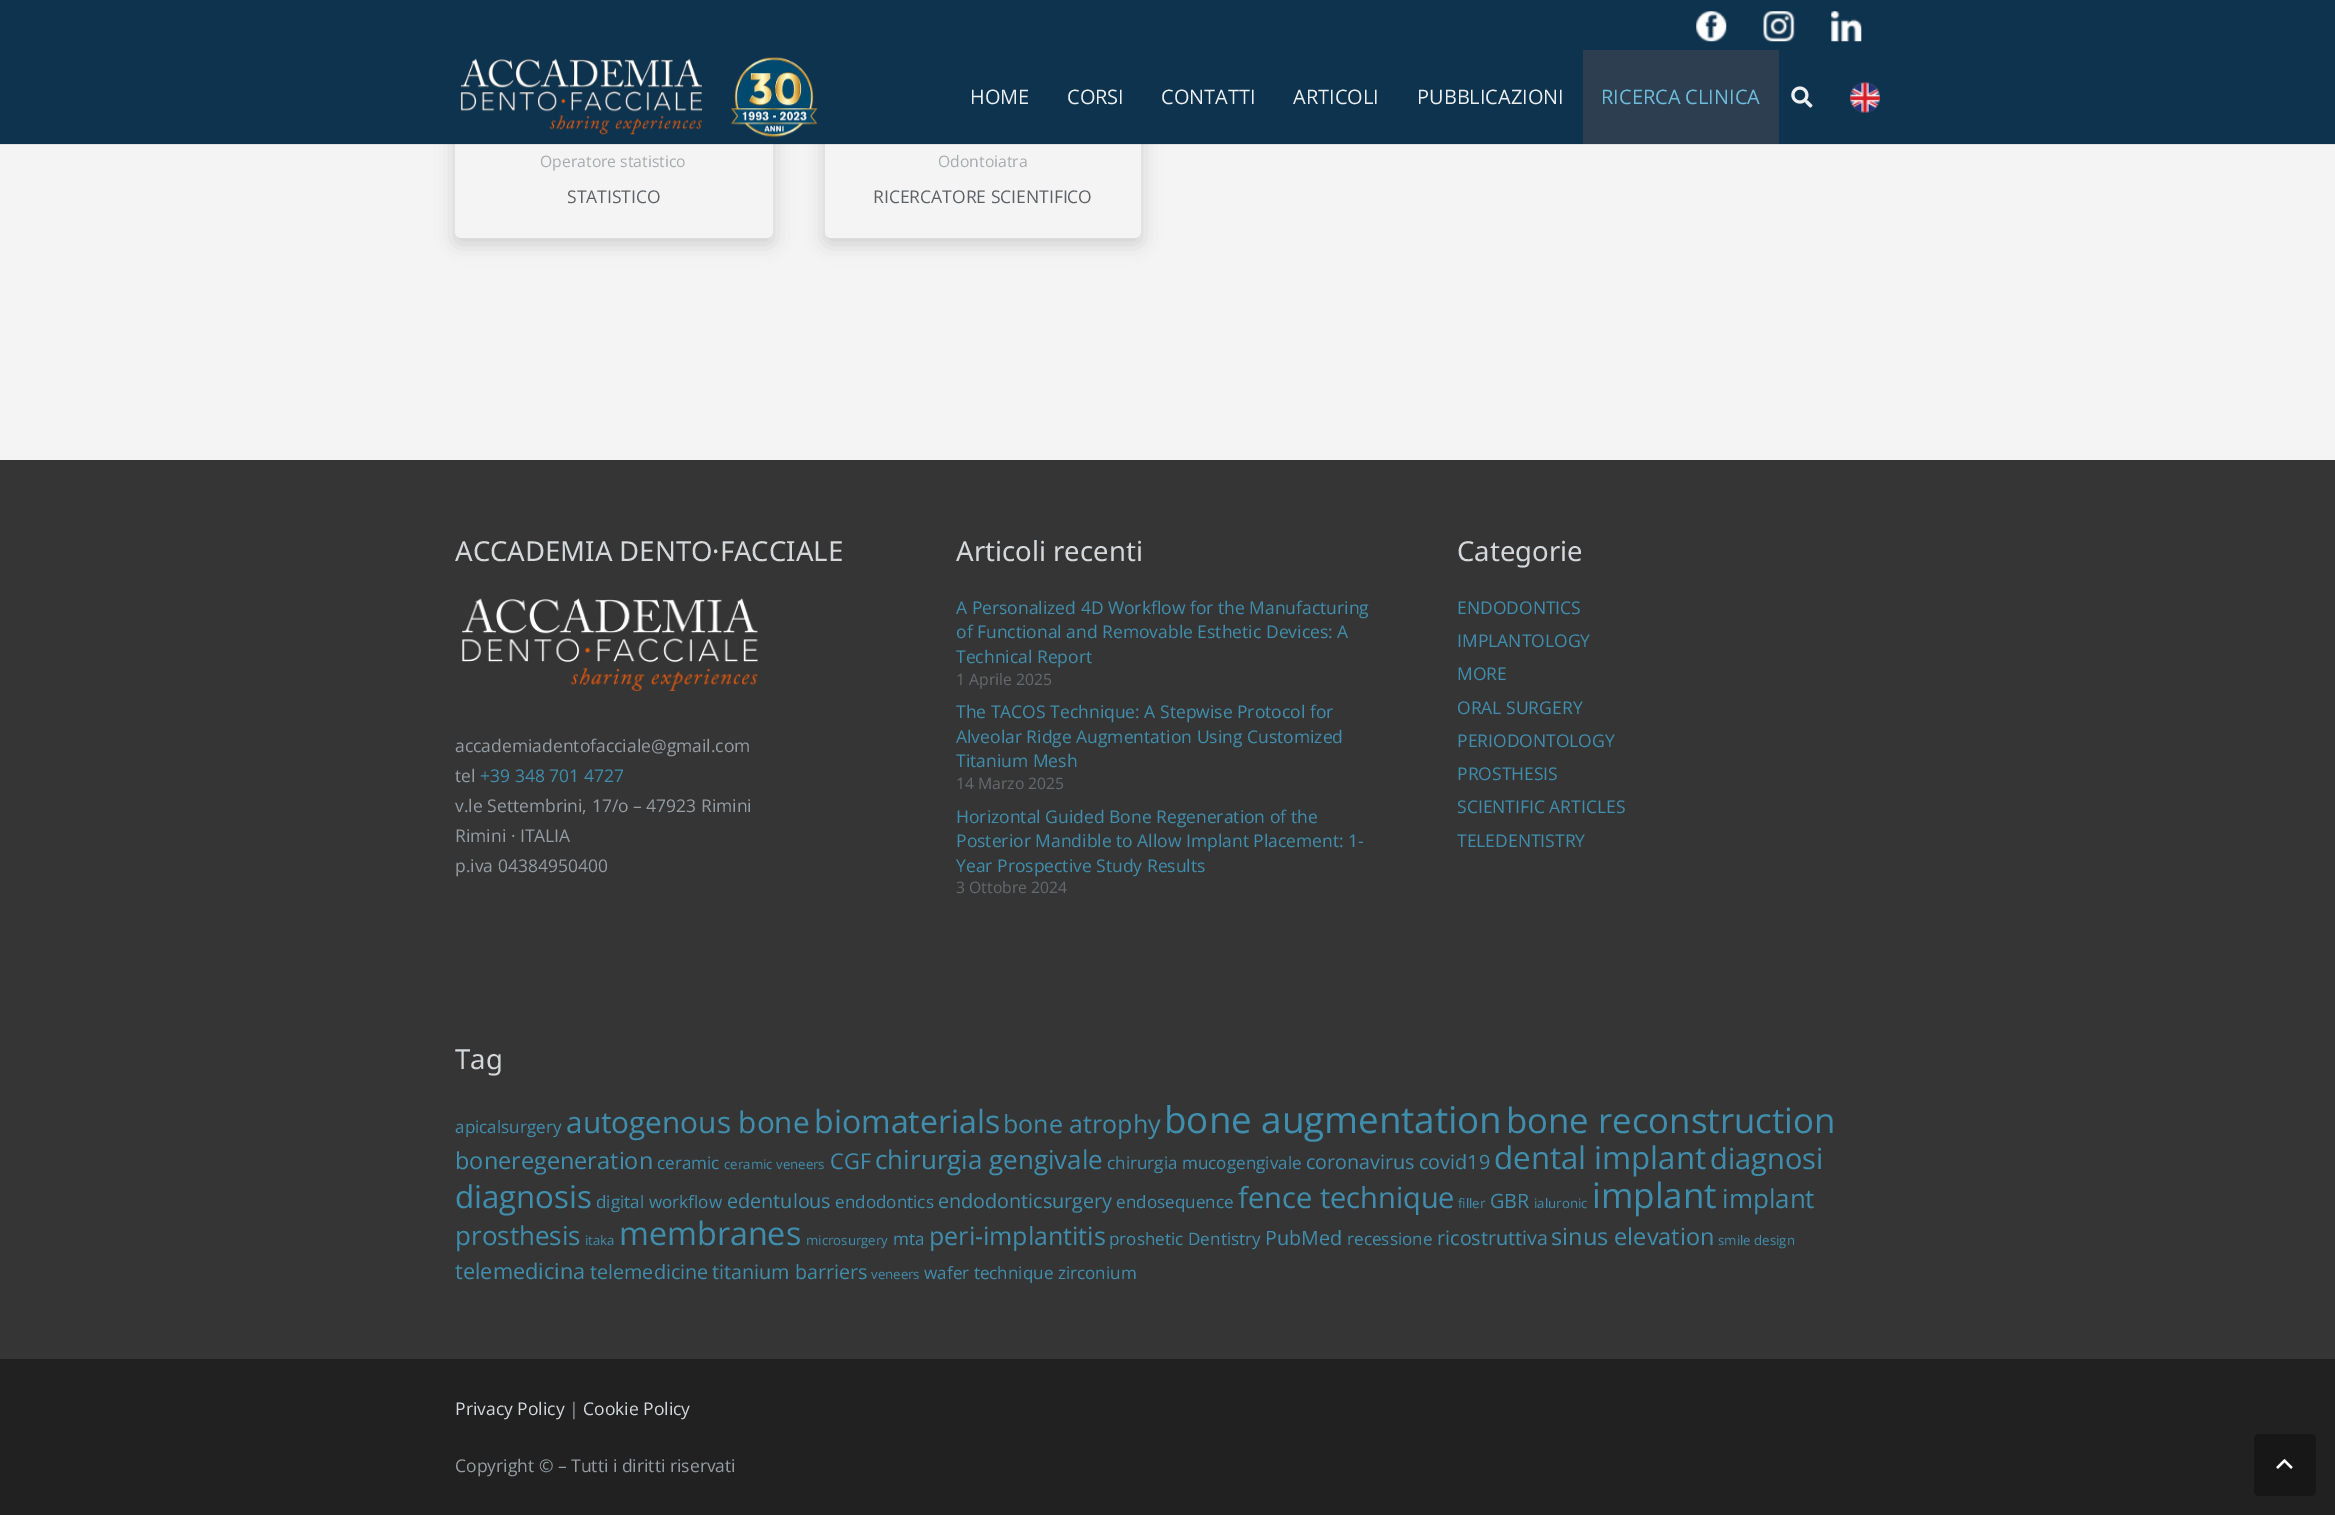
%!PS
<< /PageSize [2335 1515] /PageUsesTransparency true >> setpagedevice
/rgb { 3 { 255 div 3 1 roll } repeat setrgbcolor } def
/font { [ exch dup neg 0 0 3 -1 roll 0 0 ] selectfont } def
/alpha { dup .setfillconstantalpha .setstrokeconstantalpha } def
/roundrect { 5 dict begin { /r /h /w /y /x } { exch def } forall
  x r add y moveto x w add y 2 copy h add r arct x w add y h add x 1 index r arct
  x y h add x y r arct x y 2 copy exch w add exch r arct closepath end } def
/shadow { 12 dict begin { /a /b /q /h /w /y /x } { exch def } forall gsave /was 0 def
  9 -2 -9 { dup b mul 4 div /e exch def 1 sub .425 mul 2.718 exch exp 1 add a .99 .min exch div /now exch def
    1 1 now sub 1 was sub div sub alpha /was now def
    w h .min e 2 mul add 0 gt { x e sub y e sub w e 2 mul add h e 2 mul add
      q e add b .6 mul add w h .min 2 div e add .min 0 .max roundrect fill } if } for grestore end } def
/picture { 5 dict begin { /h /w /y /x /name } { exch def } forall
  gsave x y translate w h scale
  w h 8 [w 0 0 h 0 0] name (r) file false 3 colorimage grestore end } def
0 .pushpdf14devicefilter
0 1515 translate 1 -1 scale
4 setmiterlimit
244 244 244 rgb
0 0 2335 1515 rectfill
gsave
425 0 moveto 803 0 lineto 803 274 lineto 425 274 lineto closepath 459 -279 moveto 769 -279 lineto 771 -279 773 -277 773 -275 curveto 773 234 lineto 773 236 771 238 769 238 curveto 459 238 lineto 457 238 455 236 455 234 curveto 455 -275 lineto 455 -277 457 -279 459 -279 curveto closepath eoclip newpath
0 0 0 rgb
455 -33 318 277 4 9.5 0.15 shadow
grestore
gsave
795 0 moveto 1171 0 lineto 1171 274 lineto 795 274 lineto closepath 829 -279 moveto 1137 -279 lineto 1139 -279 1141 -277 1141 -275 curveto 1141 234 lineto 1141 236 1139 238 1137 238 curveto 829 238 lineto 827 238 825 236 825 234 curveto 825 -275 lineto 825 -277 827 -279 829 -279 curveto closepath eoclip newpath
0 0 0 rgb
825 -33 316 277 4 9.5 0.15 shadow
grestore
14 51 78 rgb
0 0 2335 144 rectfill
(img/1.rgb) 1696 11 31 31 picture
(img/2.rgb) 1763 11 32 31 picture
(img/3.rgb) 1831 11 31 31 picture
0.08 alpha
0 0 0 rgb
0 144 2335 1 rectfill
1 alpha
(img/4.rgb) 460 58 243 77 picture
(img/5.rgb) 731 57 87 81 picture
44 62 80 rgb
1583 50 196 94 rectfill
(img/6.rgb) 1791 86 22 22 picture
(img/7.rgb) 1850 82 30 31 picture
53 53 53 rgb
0 460 2335 899 rectfill
(img/8.rgb) 462 598 297 93 picture
33 33 33 rgb
0 1359 2335 156 rectfill
23 23 23 rgb
2254 1434 62 62 5 roundrect fill
(img/9.rgb) 2276 1459 17 10 picture
/OpenSans-Regular 20 font
237 240 242 rgb
[
  [(HOME) 970 104]
  [(CORSI) 1067 104]
  [(CONTATTI) 1161 104]
  [(ARTICOLI) 1293 104]
  [(PUBBLICAZIONI) 1417 104]
] { aload pop moveto show } forall
109 188 219 rgb
1601 104 moveto (RICERCA CLINICA) show
/OpenSans-Regular 15.75 font
168 171 173 rgb
540 167 moveto (Operatore statistico) show
/OpenSans-Regular 17.5 font
92 97 102 rgb
567 203 moveto (STATISTICO) show
/OpenSans-Regular 15.75 font
168 171 173 rgb
938 167 moveto (Odontoiatra) show
/OpenSans-Regular 17.5 font
92 97 102 rgb
873 203 moveto (RICERCATORE SCIENTIFICO) show
/NotoSans-Regular 27.5 font
211 216 219 rgb
455 561 moveto (ACCADEMIA DENTO·FACCIALE) show
/OpenSans-Regular 17.5 font
147 157 163 rgb
455 752 moveto (accademiadentofacciale@gmail.com) show
455 782 moveto (tel) show
64 142 173 rgb
480 782 moveto (+39 348 701 4727) show
147 157 163 rgb
[
  [(v.le Settembrini, 17/o – 47923 Rimini) 455 812]
  [(Rimini · ITALIA) 455 842]
  [(p.iva 04384950400) 455 872]
] { aload pop moveto show } forall
/NotoSans-Regular 27.5 font
211 216 219 rgb
956 561 moveto (Articoli recenti) show
/OpenSans-Regular 17.5 font
64 142 173 rgb
[
  [(A Personalized 4D Workflow for the Manufacturing) 956 614]
  [(of Functional and Removable Esthetic Devices: A) 956 638]
  [(Technical Report) 956 663]
] { aload pop moveto show } forall
/OpenSans-Regular 15.75 font
100 105 108 rgb
956 685 moveto (1 Aprile 2025) show
/OpenSans-Regular 17.5 font
64 142 173 rgb
[
  [(The TACOS Technique: A Stepwise Protocol for) 956 718]
  [(Alveolar Ridge Augmentation Using Customized) 956 743]
  [(Titanium Mesh) 956 767]
] { aload pop moveto show } forall
/OpenSans-Regular 15.75 font
100 105 108 rgb
956 789 moveto (14 Marzo 2025) show
/OpenSans-Regular 17.5 font
64 142 173 rgb
[
  [(Horizontal Guided Bone Regeneration of the) 956 823]
  [(Posterior Mandible to Allow Implant Placement: 1-) 956 847]
  [(Year Prospective Study Results) 956 872]
] { aload pop moveto show } forall
/OpenSans-Regular 15.75 font
100 105 108 rgb
956 893 moveto (3 Ottobre 2024) show
/NotoSans-Regular 27.5 font
211 216 219 rgb
1457 561 moveto (Categorie) show
/OpenSans-Regular 17.5 font
64 142 173 rgb
[
  [(ENDODONTICS) 1457 614]
  [(IMPLANTOLOGY) 1457 647]
  [(MORE) 1457 680]
  [(ORAL SURGERY) 1457 714]
  [(PERIODONTOLOGY) 1457 747]
  [(PROSTHESIS) 1457 780]
  [(SCIENTIFIC ARTICLES) 1457 813]
  [(TELEDENTISTRY) 1457 847]
] { aload pop moveto show } forall
/NotoSans-Regular 27.5 font
211 216 219 rgb
455 1069 moveto (Tag) show
/OpenSans-Regular 17.1 font
64 142 173 rgb
455 1133 moveto (apicalsurgery) show
/OpenSans-Regular 29.75 font
566 1133 moveto (autogenous bone) show
/OpenSans-Regular 32 font
814 1133 moveto (biomaterials) show
/OpenSans-Regular 25 font
1003 1133 moveto (bone atrophy) show
/OpenSans-Regular 36.75 font
1164 1133 moveto (bone augmentation) show
/OpenSans-Regular 34.75 font
1506 1133 moveto (bone reconstruction) show
/OpenSans-Regular 23.5 font
455 1169 moveto (boneregeneration) show
/OpenSans-Regular 17.1 font
657 1169 moveto (ceramic) show
/OpenSans-Regular 13.25 font
724 1169 moveto (ceramic veneers) show
/OpenSans-Regular 21.75 font
830 1169 moveto (CGF) show
/OpenSans-Regular 26 font
875 1169 moveto (chirurgia gengivale) show
/OpenSans-Regular 17.1 font
1107 1169 moveto (chirurgia mucogengivale) show
/OpenSans-Regular 19.75 font
1306 1169 moveto (coronavirus) show
1419 1169 moveto (covid19) show
/OpenSans-Regular 31.25 font
1494 1169 moveto (dental implant) show
/OpenSans-Regular 29 font
1710 1169 moveto (diagnosi) show
/OpenSans-Regular 31.25 font
455 1208 moveto (diagnosis) show
/OpenSans-Regular 17.1 font
596 1208 moveto (digital workflow) show
/OpenSans-Regular 19.75 font
727 1208 moveto (edentulous) show
/OpenSans-Regular 17.1 font
835 1208 moveto (endodontics) show
/OpenSans-Regular 19.75 font
938 1208 moveto (endodonticsurgery) show
/OpenSans-Regular 17.1 font
1116 1208 moveto (endosequence) show
/OpenSans-Regular 29 font
1238 1208 moveto (fence technique) show
/OpenSans-Regular 13.25 font
1458 1208 moveto (filler) show
/OpenSans-Regular 19.75 font
1490 1208 moveto (GBR) show
/OpenSans-Regular 13.25 font
1534 1208 moveto (ialuronic) show
/OpenSans-Regular 35 font
1592 1208 moveto (implant) show
/OpenSans-Regular 26 font
1722 1208 moveto (implant) show
455 1245 moveto (prosthesis) show
/OpenSans-Regular 13.25 font
585 1245 moveto (itaka) show
/OpenSans-Regular 32.25 font
619 1245 moveto (membranes) show
/OpenSans-Regular 13.25 font
806 1245 moveto (microsurgery) show
/OpenSans-Regular 17.1 font
893 1245 moveto (mta) show
/OpenSans-Regular 25 font
929 1245 moveto (peri-implantitis) show
/OpenSans-Regular 17.1 font
1109 1245 moveto (proshetic Dentistry) show
/OpenSans-Regular 19.75 font
1265 1245 moveto (PubMed) show
/OpenSans-Regular 17.1 font
1347 1245 moveto (recessione) show
/OpenSans-Regular 19.75 font
1437 1245 moveto (ricostruttiva) show
/OpenSans-Regular 23.5 font
1551 1245 moveto (sinus elevation) show
/OpenSans-Regular 13.25 font
1718 1245 moveto (smile design) show
/OpenSans-Regular 21.75 font
455 1279 moveto (telemedicina) show
/OpenSans-Regular 19.75 font
590 1279 moveto (telemedicine) show
712 1279 moveto (titanium barriers) show
/OpenSans-Regular 13.25 font
871 1279 moveto (veneers) show
/OpenSans-Regular 17.1 font
924 1279 moveto (wafer technique zirconium) show
/OpenSans-Regular 17.5 font
211 216 219 rgb
455 1415 moveto (Privacy Policy) show
147 157 163 rgb
569 1415 moveto (|) show
211 216 219 rgb
583 1415 moveto (Cookie Policy) show
147 157 163 rgb
455 1472 moveto (Copyright © – Tutti i diritti riservati) show
.poppdf14devicefilter showpage
